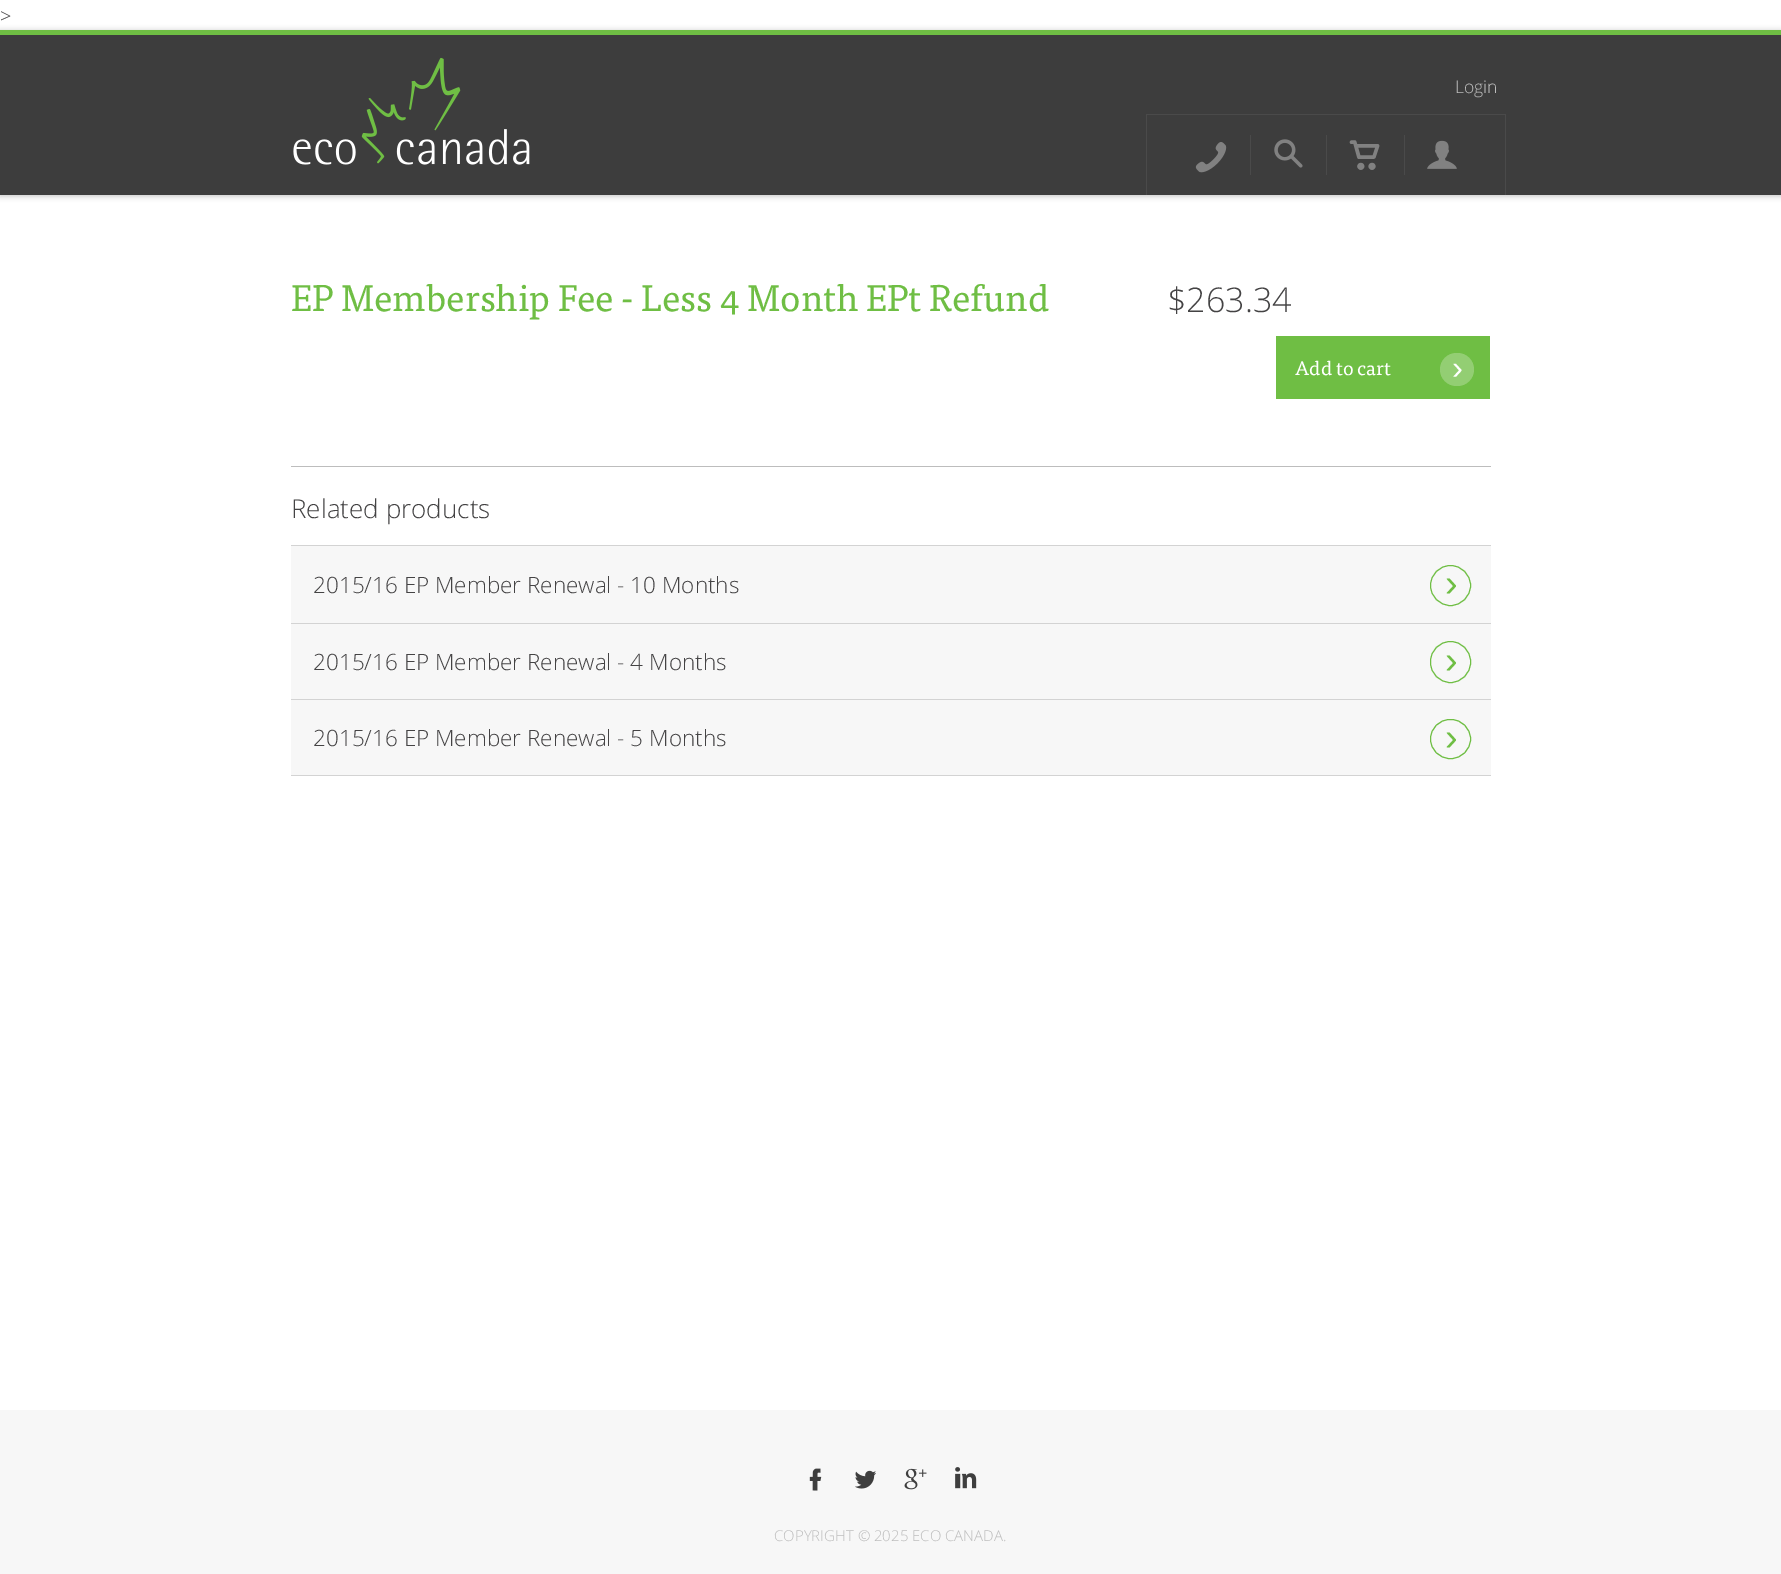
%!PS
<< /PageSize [1781 1574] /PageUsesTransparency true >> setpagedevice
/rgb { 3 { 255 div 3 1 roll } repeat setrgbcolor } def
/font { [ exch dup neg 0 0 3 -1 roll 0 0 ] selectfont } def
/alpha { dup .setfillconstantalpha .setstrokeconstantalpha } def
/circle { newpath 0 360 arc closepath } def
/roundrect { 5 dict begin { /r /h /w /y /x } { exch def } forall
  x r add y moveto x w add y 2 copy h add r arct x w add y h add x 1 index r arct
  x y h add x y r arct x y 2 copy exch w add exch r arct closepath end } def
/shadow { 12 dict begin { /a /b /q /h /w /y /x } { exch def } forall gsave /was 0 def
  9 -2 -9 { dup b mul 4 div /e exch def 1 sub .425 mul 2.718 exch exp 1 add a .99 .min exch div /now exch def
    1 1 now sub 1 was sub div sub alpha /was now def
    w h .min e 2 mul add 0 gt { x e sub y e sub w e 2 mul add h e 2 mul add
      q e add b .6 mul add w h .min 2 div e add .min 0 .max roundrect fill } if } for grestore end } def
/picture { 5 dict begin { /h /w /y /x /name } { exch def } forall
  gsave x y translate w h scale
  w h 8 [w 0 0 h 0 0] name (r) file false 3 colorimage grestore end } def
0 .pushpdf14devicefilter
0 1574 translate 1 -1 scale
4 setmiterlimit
255 255 255 rgb
0 0 1781 1574 rectfill
0 0 0 rgb
0 31 1781 165 0 3 0.25 shadow
61 61 61 rgb
0 35 1781 160 rectfill
111 190 68 rgb
0 30 1781 5 rectfill
(img/1.rgb) 293 57 237 108 picture
[
  [1146 114 360 1 74 74 74]
  [1505 114 1 81 74 74 74]
  [1146 114 1 81 74 74 74]
] { aload pop rgb rectfill } forall
(img/2.rgb) 1195 142 32 31 picture
1250 135 1 40 rectfill
(img/3.rgb) 1274 139 29 29 picture
1326 135 1 40 rectfill
(img/4.rgb) 1349 140 31 30 picture
1404 135 1 40 rectfill
(img/5.rgb) 1427 140 30 29 picture
111 190 68 rgb
1276 336 214 63 rectfill
147 206 115 rgb
1440 353 34 33 16.5 roundrect fill
[
  [291 466 1200 1 189 189 189]
  [291 545 1200 1 211 211 211]
  [291 623 1200 1 211 211 211]
  [291 546 1200 77 247 247 247]
] { aload pop rgb rectfill } forall
111 190 68 rgb
1450.5 585.5 20 circle stroke
211 211 211 rgb
291 699 1200 1 rectfill
247 247 247 rgb
291 624 1200 75 rectfill
111 190 68 rgb
1430.5 641.5 40 41 20 roundrect stroke
211 211 211 rgb
291 775 1200 1 rectfill
247 247 247 rgb
291 700 1200 75 rectfill
111 190 68 rgb
1430.5 719.5 40 39 19.5 roundrect stroke
247 247 247 rgb
0 1410 1781 164 rectfill
(img/6.rgb) 809 1468 13 23 picture
(img/7.rgb) 855 1470 21 19 picture
(img/8.rgb) 904 1468 23 22 picture
(img/9.rgb) 955 1467 22 22 picture
/OpenSans-Light 20 font
68 67 68 rgb
0 23 moveto (>) show
/OpenSans-Light 17.5 font
189 189 189 rgb
1455 93 moveto (Login) show
/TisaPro-Regular 37.1 font
111 190 68 rgb
291 311 moveto (EP Membership Fee - Less 4 Month EPt Refund) show
/OpenSans-Light 34 font
68 67 68 rgb
1167 312 moveto ($263.34) show
/TisaPro-Regular 19.5 font
255 255 255 rgb
1295 375 moveto (Add to cart) show
/LiberationSans-Regular 33 font
1452 379 moveto (›) show
/OpenSans-Light 26 font
68 67 68 rgb
291 518 moveto (Related products) show
/OpenSans-Light 22.5 font
313 593 moveto (2015/16 EP Member Renewal - 10 Months) show
/LiberationSans-Regular 38 font
111 190 68 rgb
1445 596 moveto (›) show
/OpenSans-Light 22.5 font
68 67 68 rgb
313 670 moveto (2015/16 EP Member Renewal - 4 Months) show
/LiberationSans-Regular 38 font
111 190 68 rgb
1445 673 moveto (›) show
/OpenSans-Light 22.5 font
68 67 68 rgb
313 746 moveto (2015/16 EP Member Renewal - 5 Months) show
/LiberationSans-Regular 38 font
111 190 68 rgb
1445 750 moveto (›) show
/OpenSans-Light 15 font
189 189 189 rgb
774 1541 moveto (COPYRIGHT © 2025 ECO CANADA.) show
.poppdf14devicefilter showpage
